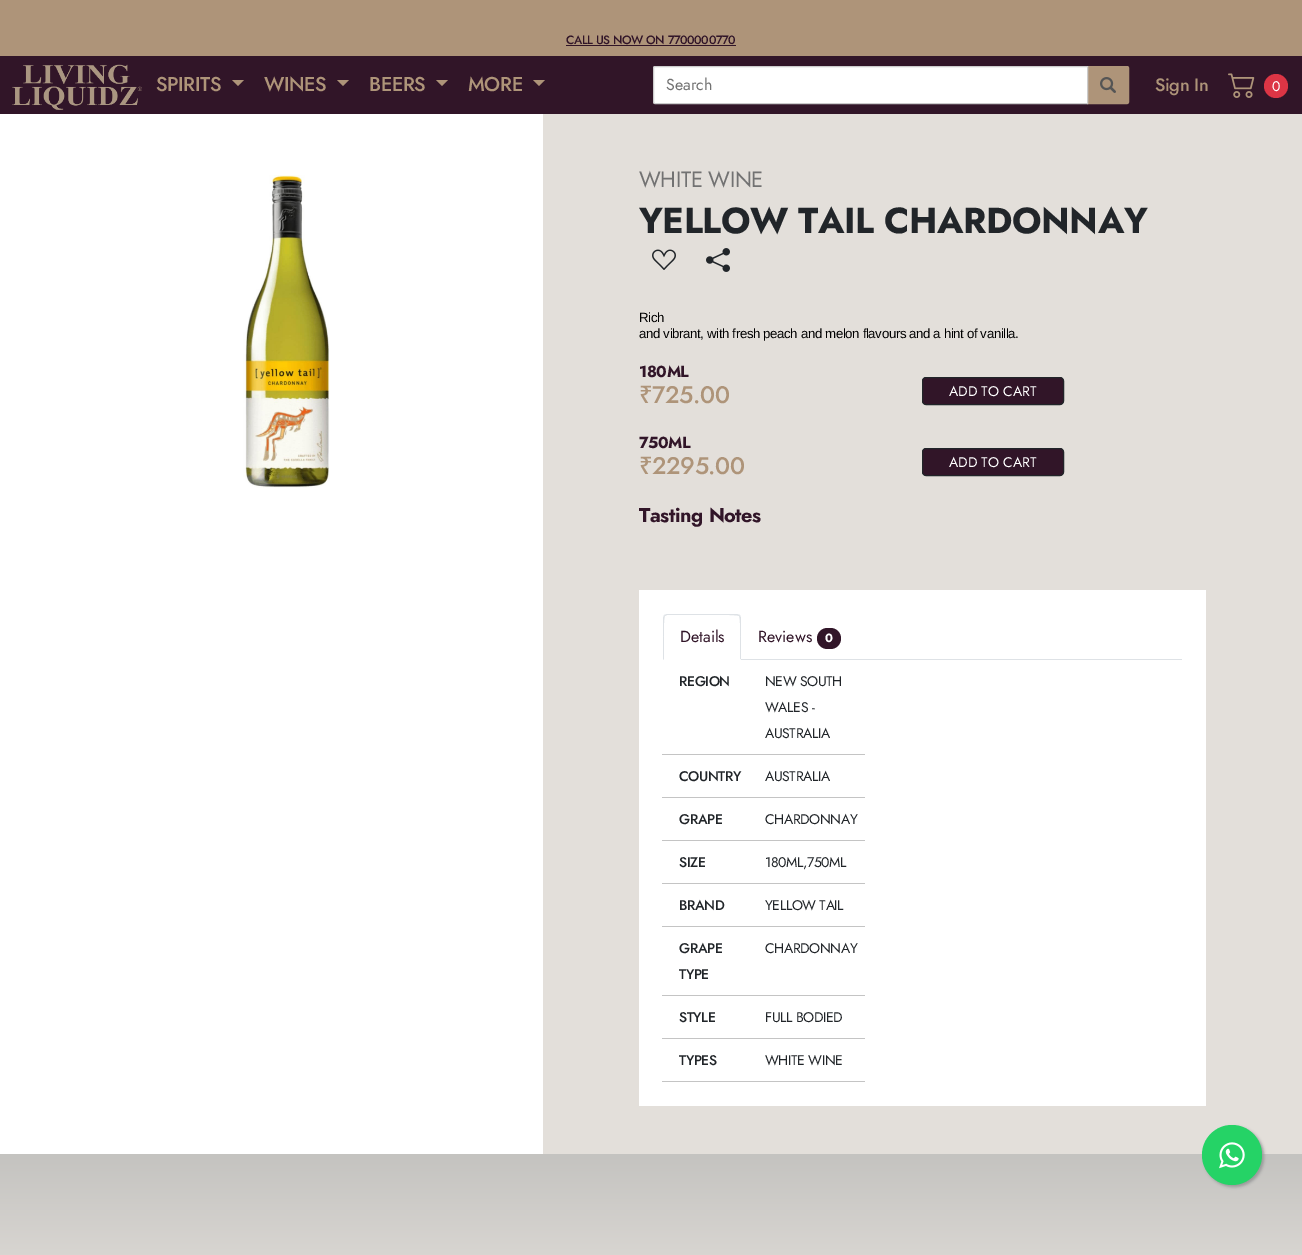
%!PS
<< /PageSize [1302 1255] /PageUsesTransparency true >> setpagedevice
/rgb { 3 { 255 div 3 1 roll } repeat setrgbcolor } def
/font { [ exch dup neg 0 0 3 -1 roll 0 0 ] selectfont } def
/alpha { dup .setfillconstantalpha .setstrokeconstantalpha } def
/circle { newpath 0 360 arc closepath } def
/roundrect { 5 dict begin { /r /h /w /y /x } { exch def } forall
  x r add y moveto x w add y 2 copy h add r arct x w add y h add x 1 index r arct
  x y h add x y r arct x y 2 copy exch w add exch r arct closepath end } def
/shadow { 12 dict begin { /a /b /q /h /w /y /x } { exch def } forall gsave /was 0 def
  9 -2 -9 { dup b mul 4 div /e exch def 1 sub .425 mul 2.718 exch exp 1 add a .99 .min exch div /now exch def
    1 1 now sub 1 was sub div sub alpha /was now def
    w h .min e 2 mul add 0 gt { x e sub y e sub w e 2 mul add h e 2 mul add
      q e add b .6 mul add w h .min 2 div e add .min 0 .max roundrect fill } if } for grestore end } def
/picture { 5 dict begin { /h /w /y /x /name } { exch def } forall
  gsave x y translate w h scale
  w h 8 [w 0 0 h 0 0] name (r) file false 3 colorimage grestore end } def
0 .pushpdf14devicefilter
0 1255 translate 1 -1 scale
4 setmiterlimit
227 223 218 rgb
0 0 1302 1255 rectfill
[
  [0 0 1302 56 174 148 121]
  [566 45 170 1 49 21 40]
  [0 56 1302 58 49 21 40]
] { aload pop rgb rectfill } forall
(img/1.rgb) 12 64 130 46 picture
174 148 121 rgb
232 80 moveto 244 80 lineto 238 86 lineto closepath fill
337 80 moveto 349 80 lineto 343 86 lineto closepath fill
436 80 moveto 448 80 lineto 442 86 lineto closepath fill
533 80 moveto 545 80 lineto 539 86 lineto closepath fill
1087.5 66.5 moveto 1127 66.5 lineto 1128 66.5 1128.5 67 1128.5 68 curveto 1128.5 102 lineto 1128.5 103 1128 103.5 1127 103.5 curveto 1087.5 103.5 lineto closepath gsave fill grestore
stroke
255 255 255 rgb
655 66.5 moveto 1087.5 66.5 lineto 1087.5 103.5 lineto 655 103.5 lineto 654 103.5 653.5 103 653.5 102 curveto 653.5 68 lineto 653.5 67 654 66.5 655 66.5 curveto closepath gsave fill grestore
204 204 204 rgb
stroke
(img/2.rgb) 1100 77 16 16 picture
(img/3.rgb) 1228 73 27 25 picture
220 53 69 rgb
1276 86 12 circle fill
255 255 255 rgb
0 114 543 1040 rectfill
(img/4.rgb) 243 175 87 313 picture
(img/5.rgb) 652 249 24 21 picture
(img/6.rgb) 706 248 24 24 picture
49 21 40 rgb
922.5 377.5 141 27 3.5 roundrect gsave fill grestore
33 37 41 rgb
stroke
49 21 40 rgb
922.5 448.5 141 27 3.5 roundrect gsave fill grestore
33 37 41 rgb
stroke
255 255 255 rgb
639 590 567 516 rectfill
222 226 230 rgb
741 659 441 1 rectfill
667 614 moveto 664 615 lineto 665 616 lineto 667 615 lineto 679 615 lineto 685 615 737 614 739 616 curveto 740 615 lineto 737 614 lineto closepath fill
741 660 moveto 741 618 lineto 741 617 740 616 740 615 curveto 739 616 lineto 741 618 740 654 740 659 curveto closepath fill
255 255 255 rgb
741 660 moveto 740 659 lineto 664 659 lineto 663 660 lineto closepath fill
222 226 230 rgb
663 660 moveto 664 659 lineto 664 654 663 618 665 616 curveto 664 615 lineto 663 618 lineto closepath fill
49 21 40 rgb
817 628 24 21 10.5 roundrect fill
[
  [662 754 203 1 196 196 196]
  [662 797 203 1 196 196 196]
  [662 840 203 1 196 196 196]
  [662 883 203 1 196 196 196]
  [662 926 203 1 196 196 196]
  [662 995 203 1 196 196 196]
  [662 1038 203 1 196 196 196]
  [662 1081 203 1 196 196 196]
] { aload pop rgb rectfill } forall
gsave 0 1154 moveto 1302 1154 lineto 1302 1255 lineto 0 1255 lineto closepath clip newpath
<< /ShadingType 2 /ColorSpace /DeviceRGB /Coords [651 1154 651 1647] /Extend [true true] /Function << /FunctionType 3 /Domain [0 1] /Functions [<< /FunctionType 2 /Domain [0 1] /C0 [0.769 0.765 0.753] /C1 [0.89 0.875 0.855] /N 1 >> << /FunctionType 2 /Domain [0 1] /C0 [0.89 0.875 0.855] /C1 [0.89 0.875 0.855] /N 1 >>] /Bounds [0.32] /Encode [0 1 0 1] >> >> shfill grestore
153 153 153 rgb
1204 1127 60 60 30 1.5 1 shadow
37 211 102 rgb
1232 1155 30 circle fill
(img/7.rgb) 1219 1142 26 27 picture
/Jost-Medium 12 font
49 21 40 rgb
566 44 moveto -0.4 0 (CALL US NOW ON 7700000770) ashow
/Jost-Medium 20 font
174 148 121 rgb
156 91 moveto -0.4 0 (SPIRITS) ashow
264 91 moveto -0.4 0 (WINES) ashow
369 91 moveto -0.4 0 (BEERS) ashow
468 91 moveto -0.4 0 (MORE) ashow
/Jost-Regular 16 font
114 114 114 rgb
666 90 moveto (Search) show
/Jost-Medium 18 font
174 148 121 rgb
1155 91 moveto -0.4 0 (Sign In) ashow
/Jost-Regular 14 font
255 255 255 rgb
1272 91 moveto -0.4 0 (0) ashow
/Jost-Regular 22 font
114 114 114 rgb
639 187 moveto -0.4 0 (WHITE WINE) ashow
/Jost-Bold 36 font
33 37 41 rgb
639 233 moveto -0.4 0 (YELLOW TAIL CHARDONNAY) ashow
/LiberationSans-Regular 13.3 font
0 0 0 rgb
639 322 moveto -0.4 0 (Rich) ashow
639 338 moveto -0.4 0 (and vibrant, with fresh peach and melon flavours and a hint of vanilla.) ashow
/Jost-Bold 16 font
49 21 40 rgb
639 377 moveto -0.4 0 (180ML) ashow
/NotoSans-Medium 24 font
174 148 121 rgb
639 403 moveto -0.4 0 (₹) ashow
/Jost-Medium 24 font
652 403 moveto -0.4 0 (725.00) ashow
/Jost-Regular 14 font
255 255 255 rgb
949 396 moveto (ADD TO CART) show
/Jost-Bold 16 font
49 21 40 rgb
639 448 moveto -0.4 0 (750ML) ashow
/NotoSans-Medium 24 font
174 148 121 rgb
639 474 moveto -0.4 0 (₹) ashow
/Jost-Medium 24 font
652 474 moveto -0.4 0 (2295.00) ashow
/Jost-Regular 14 font
255 255 255 rgb
949 467 moveto (ADD TO CART) show
/Jost-Bold 20 font
49 21 40 rgb
639 522 moveto -0.4 0 (Tasting Notes) ashow
/Jost-Regular 16 font
680 642 moveto (Details) show
758 642 moveto (Reviews) show
/Jost-Bold 12 font
255 255 255 rgb
825 642 moveto (0) show
/Jost-Medium 14 font
33 37 41 rgb
679 686 moveto -0.4 0 (REGION) ashow
/Jost-Regular 14 font
765 686 moveto -0.4 0 (NEW SOUTH) ashow
765 712 moveto -0.4 0 (WALES -) ashow
765 738 moveto -0.4 0 (AUSTRALIA) ashow
/Jost-Medium 14 font
679 781 moveto -0.4 0 (COUNTRY) ashow
/Jost-Regular 14 font
765 781 moveto -0.4 0 (AUSTRALIA) ashow
/Jost-Medium 14 font
679 824 moveto -0.4 0 (GRAPE) ashow
/Jost-Regular 14 font
765 824 moveto -0.4 0 (CHARDONNAY) ashow
/Jost-Medium 14 font
679 867 moveto -0.4 0 (SIZE) ashow
/Jost-Regular 14 font
765 867 moveto -0.4 0 (180ML,750ML) ashow
/Jost-Medium 14 font
679 910 moveto -0.4 0 (BRAND) ashow
/Jost-Regular 14 font
765 910 moveto -0.4 0 (YELLOW TAIL) ashow
/Jost-Medium 14 font
679 953 moveto -0.4 0 (GRAPE) ashow
679 979 moveto -0.4 0 (TYPE) ashow
/Jost-Regular 14 font
765 953 moveto -0.4 0 (CHARDONNAY) ashow
/Jost-Medium 14 font
679 1022 moveto -0.4 0 (STYLE) ashow
/Jost-Regular 14 font
765 1022 moveto -0.4 0 (FULL BODIED) ashow
/Jost-Medium 14 font
679 1065 moveto -0.4 0 (TYPES) ashow
/Jost-Regular 14 font
765 1065 moveto -0.4 0 (WHITE WINE) ashow
.poppdf14devicefilter showpage
